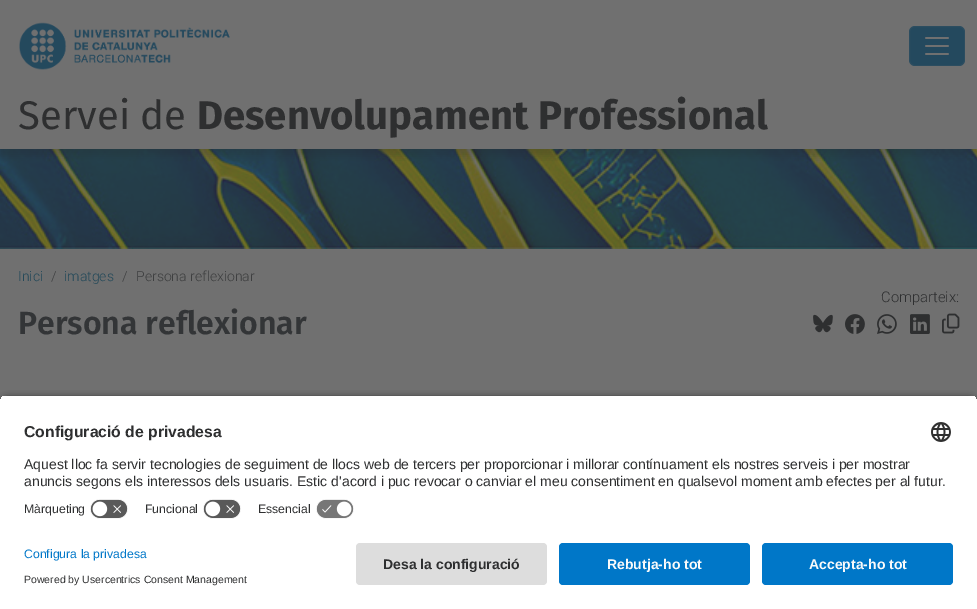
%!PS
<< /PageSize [977 609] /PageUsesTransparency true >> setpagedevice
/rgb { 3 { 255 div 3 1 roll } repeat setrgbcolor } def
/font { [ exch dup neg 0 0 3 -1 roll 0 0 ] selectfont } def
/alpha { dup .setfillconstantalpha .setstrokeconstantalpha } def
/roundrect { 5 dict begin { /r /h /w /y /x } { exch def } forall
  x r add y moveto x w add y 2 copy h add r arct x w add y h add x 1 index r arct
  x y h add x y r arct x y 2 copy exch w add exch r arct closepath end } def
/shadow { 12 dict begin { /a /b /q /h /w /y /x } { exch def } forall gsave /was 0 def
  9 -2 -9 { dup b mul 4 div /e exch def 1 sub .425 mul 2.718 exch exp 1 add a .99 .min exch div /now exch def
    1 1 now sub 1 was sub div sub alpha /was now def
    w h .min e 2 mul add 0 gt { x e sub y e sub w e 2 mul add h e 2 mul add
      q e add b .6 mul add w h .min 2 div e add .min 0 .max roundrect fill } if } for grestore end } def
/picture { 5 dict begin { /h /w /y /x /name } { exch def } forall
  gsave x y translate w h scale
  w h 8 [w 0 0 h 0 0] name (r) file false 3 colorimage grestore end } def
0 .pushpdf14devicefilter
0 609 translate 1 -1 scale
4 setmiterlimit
112 112 112 rgb
0 0 977 609 rectfill
(img/1.rgb) 19 22 211 48 picture
36 73 94 rgb
909 26 56 40 6 roundrect fill
0.1 alpha
112 112 112 rgb
909.5 26.5 55 39 5.5 roundrect stroke
1 alpha
(img/2.rgb) 925 37 24 18 picture
(img/3.rgb) 0 149 977 100 picture
gsave
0 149 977 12 rectclip
36 36 36 rgb
0 99 977 57 0 4 0.2 shadow
grestore
(img/4.rgb) 813 314 20 19 picture
(img/5.rgb) 845 314 20 20 picture
(img/6.rgb) 877 314 20 20 picture
(img/7.rgb) 910 314 20 20 picture
(img/8.rgb) 942 313 18 21 picture
0 0 0 rgb
0 398 977 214 8 3.5 0.8 shadow
gsave
8 395 moveto 969 395 lineto 973.5 395 977 398.5 977 403 curveto 977 535 lineto 0 535 lineto 0 403 lineto 0 398.5 3.5 395 8 395 curveto closepath clip newpath
255 255 255 rgb
0 396 977 139 rectfill
0 396 977 99 rectfill
grestore
(img/9.rgb) 931 422 20 20 picture
(img/10.rgb) 90 499 38 20 picture
(img/10.rgb) 203 499 38 20 picture
(img/11.rgb) 316 499 38 20 picture
255 255 255 rgb
0 535 977 74 rectfill
221 221 221 rgb
356 543 191 42 4 roundrect fill
0 119 200 rgb
559 543 191 42 4 roundrect fill
762 543 191 42 4 roundrect fill
/FiraSans-Regular 40 font
46 47 48 rgb
18 129 moveto (Servei de) show
/FiraSans-Bold 40 font
197 129 moveto (Desenvolupament Professional) show
/Roboto-Light 14 font
36 73 89 rgb
18 281 moveto (Inici) show
62 63 64 rgb
51 281 moveto (/) show
36 73 89 rgb
64 281 moveto (imatges) show
62 63 64 rgb
122 281 moveto (/) show
136 281 moveto (Persona reflexionar) show
/Roboto-Light 14.75 font
46 47 48 rgb
881 302 moveto (Comparteix:) show
/FiraSans-SemiBold 32 font
51 53 55 rgb
18 334 moveto (Persona reflexionar) show
/LiberationSans-Bold 15.75 font
46 47 48 rgb
24 437 moveto (Configuració de privadesa) show
/LiberationSans-Regular 14 font
24 469 moveto (Aquest lloc fa servir tecnologies de seguiment de llocs web de tercers per proporcionar i millorar contínuament els nostres serveis i per mostrar) show
24 486 moveto (anuncis segons els interessos dels usuaris. Estic d'acord i puc revocar o canviar el meu consentiment en qualsevol moment amb efectes per al futur.) show
/LiberationSans-Regular 12.25 font
[
  [(Màrqueting) 24 513]
  [(Funcional) 145 513]
  [(Essencial) 258 513]
] { aload pop moveto show } forall
0 119 200 rgb
24 558 moveto (Configura la privadesa) show
/LiberationSans-Regular 10.5 font
46 47 48 rgb
24 583 moveto (Powered by Usercentrics Consent Management) show
/LiberationSans-Bold 14 font
383 569 moveto (Desa la configuració) show
250 250 250 rgb
607 569 moveto (Rebutja-ho tot) show
809 569 moveto (Accepta-ho tot) show
.poppdf14devicefilter showpage
